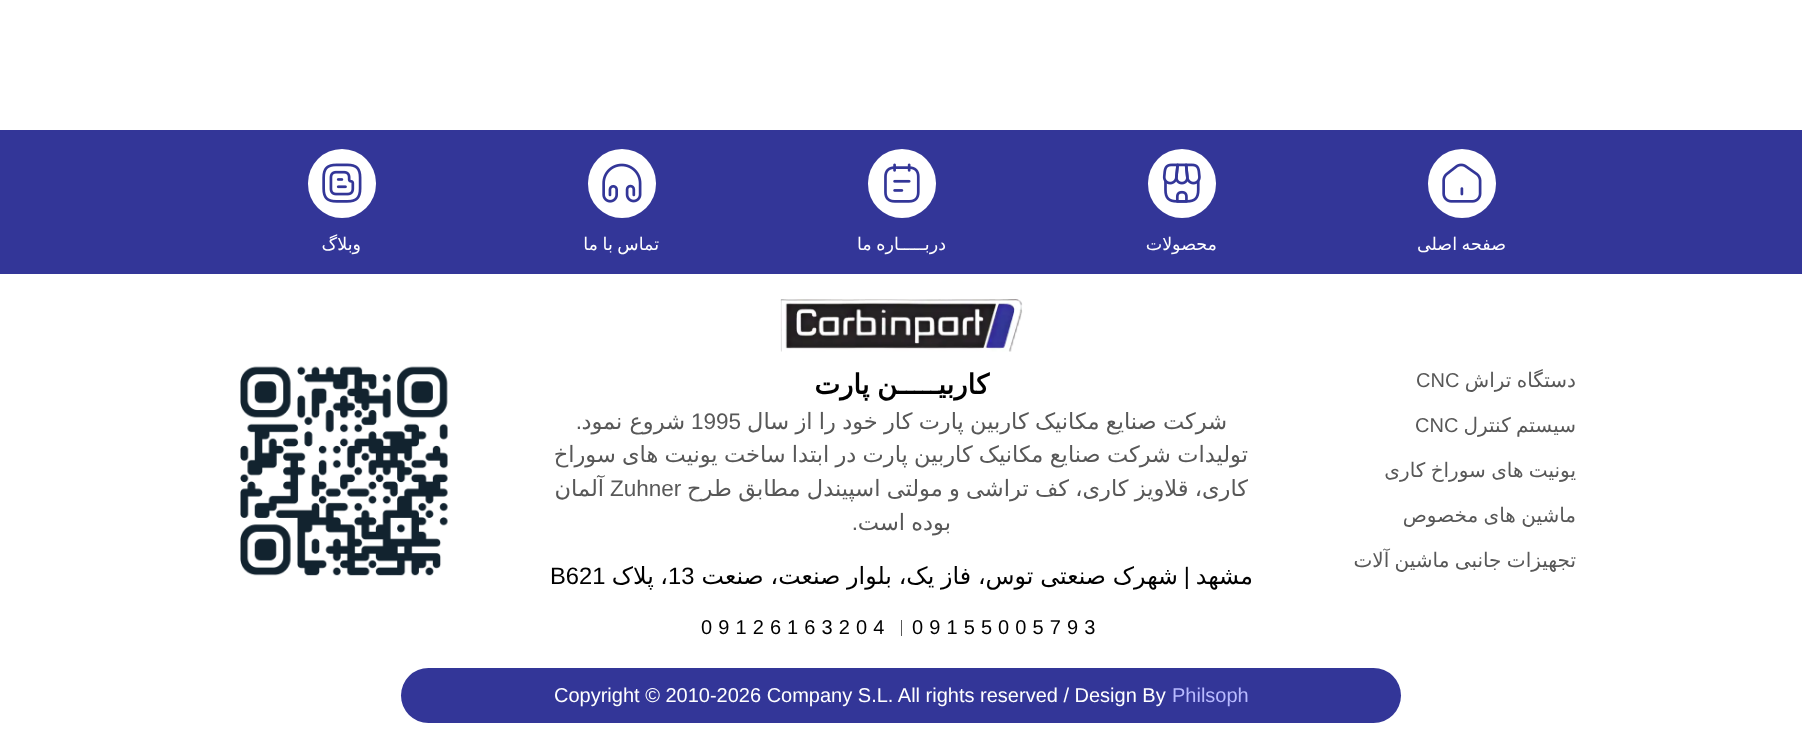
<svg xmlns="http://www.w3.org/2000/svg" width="1802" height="735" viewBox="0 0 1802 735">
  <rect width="100%" height="100%" fill="#ffffff"/>
  <rect x="0" y="130" width="1802" height="144" fill="#333698"/>
  <rect x="1428" y="149" width="68" height="69" rx="34" fill="#ffffff"/>
  <image x="1442" y="163" width="40" height="40" href="img1.png"/>
  <text x="1506" y="250" word-spacing="-1" font-family="DejaVu Sans" font-size="17.5" direction="rtl" fill="#ffffff">صفحه اصلی</text>
  <rect x="1148" y="149" width="68" height="69" rx="34" fill="#ffffff"/>
  <image x="1162" y="163" width="39" height="40" href="img2.png"/>
  <text x="1217" y="250" font-family="DejaVu Sans" font-size="17.5" direction="rtl" fill="#ffffff">محصولات</text>
  <rect x="868" y="149" width="68" height="69" rx="34" fill="#ffffff"/>
  <image x="884" y="163" width="36" height="40" href="img3.png"/>
  <text x="946" y="250" word-spacing="-1" font-family="DejaVu Sans" font-size="17.5" direction="rtl" fill="#ffffff">دربـــــاره ما</text>
  <rect x="588" y="149" width="68" height="69" rx="34" fill="#ffffff"/>
  <image x="602" y="163" width="40" height="40" href="img4.png"/>
  <text x="659" y="250" word-spacing="-1" font-family="DejaVu Sans" font-size="17.5" direction="rtl" fill="#ffffff">تماس با ما</text>
  <rect x="308" y="149" width="68" height="69" rx="34" fill="#ffffff"/>
  <image x="322" y="163" width="40" height="40" href="img5.png"/>
  <text x="361" y="250" font-family="DejaVu Sans" font-size="17.5" direction="rtl" fill="#ffffff">وبلاگ</text>
  <text x="1576" y="387" word-spacing="-1" font-family="DejaVu Sans" font-size="20" direction="rtl" fill="#585858">دستگاه تراش</text>
  <text x="1416" y="387" font-family="Liberation Sans" font-size="20" fill="#585858">CNC</text>
  <text x="1576" y="432" word-spacing="-1" font-family="DejaVu Sans" font-size="20" direction="rtl" fill="#585858">سیستم کنترل</text>
  <text x="1415" y="432" font-family="Liberation Sans" font-size="20" fill="#585858">CNC</text>
  <text x="1576" y="477" word-spacing="-1" font-family="DejaVu Sans" font-size="20" direction="rtl" fill="#585858">یونیت های سوراخ کاری</text>
  <text x="1576" y="522" word-spacing="-1" font-family="DejaVu Sans" font-size="20" direction="rtl" fill="#585858">ماشین های مخصوص</text>
  <text x="1576" y="567" word-spacing="-1" font-family="DejaVu Sans" font-size="20" direction="rtl" fill="#585858">تجهیزات جانبی ماشین آلات</text>
  <image x="780" y="299" width="243" height="53" href="img6.png"/>
  <text x="989" y="394" word-spacing="-1" font-family="DejaVu Sans" font-size="27.5" font-weight="bold" direction="rtl" fill="#000000">کاربیـــــن پارت</text>
  <text x="1227" y="429" word-spacing="-0.9" font-family="DejaVu Sans" font-size="22.5" direction="rtl" fill="#585858">شرکت صنایع مکانیک کاربین پارت کار خود را از سال</text>
  <text x="691" y="429" font-family="Liberation Sans" font-size="22.5" fill="#585858">1995</text>
  <text x="685" y="429" font-family="DejaVu Sans" font-size="22.5" direction="rtl" fill="#585858">شروع نمود</text>
  <text x="582" y="429" font-family="Liberation Sans" font-size="22.5" direction="rtl" fill="#585858">.</text>
  <text x="1248" y="462" word-spacing="-0.9" font-family="DejaVu Sans" font-size="22.5" direction="rtl" fill="#585858">تولیدات شرکت صنایع مکانیک کاربین پارت در ابتدا ساخت یونیت های سوراخ</text>
  <text x="1248" y="496" word-spacing="-0.9" font-family="DejaVu Sans" font-size="22.5" direction="rtl" fill="#585858">کاری، قلاویز کاری، کف تراشی و مولتی اسپیندل مطابق طرح</text>
  <text x="610" y="496" font-family="Liberation Sans" font-size="22.5" fill="#585858">Zuhner</text>
  <text x="604" y="496" font-family="DejaVu Sans" font-size="22.5" direction="rtl" fill="#585858">آلمان</text>
  <text x="951" y="530" word-spacing="-0.9" font-family="DejaVu Sans" font-size="22.5" direction="rtl" fill="#585858">بوده است</text>
  <text x="858" y="530" font-family="Liberation Sans" font-size="22.5" direction="rtl" fill="#585858">.</text>
  <text x="1253" y="584" font-family="DejaVu Sans" font-size="23.75" direction="rtl" fill="#000000">مشهد</text>
  <text x="1190" y="584" font-family="Liberation Sans" font-size="23.75" direction="rtl" fill="#000000">|</text>
  <text x="1178" y="584" word-spacing="-0.75" font-family="DejaVu Sans" font-size="23.75" direction="rtl" fill="#000000">شهرک صنعتی توس، فاز یک، بلوار صنعت، صنعت</text>
  <text x="668" y="584" font-family="Liberation Sans" font-size="23.75" fill="#000000">13</text>
  <text x="668" y="584" word-spacing="-1" font-family="DejaVu Sans" font-size="23.75" direction="rtl" fill="#000000">، پلاک</text>
  <text x="550" y="584" font-family="Liberation Sans" font-size="23.75" fill="#000000">B621</text>
  <text x="912" y="634" font-family="Liberation Sans" font-size="20" letter-spacing="6.1" fill="#000000">09155005793</text>
  <rect x="901" y="620" width="1" height="16" fill="#585858"/>
  <text x="701" y="634" font-family="Liberation Sans" font-size="20" letter-spacing="6.1" fill="#000000">09126163204</text>
  <image x="240" y="366" width="208" height="210" href="img7.png"/>
  <rect x="401" y="668" width="1000" height="55" rx="27.5" fill="#333698"/>
  <text x="1172" y="702" font-family="Liberation Sans" font-size="20" fill="#b8baff">Philsoph</text>
  <text x="554" y="702" font-family="Liberation Sans" font-size="20" fill="#ffffff">Copyright © 2010-2026 Company S.L. All rights reserved / Design By</text>
</svg>
